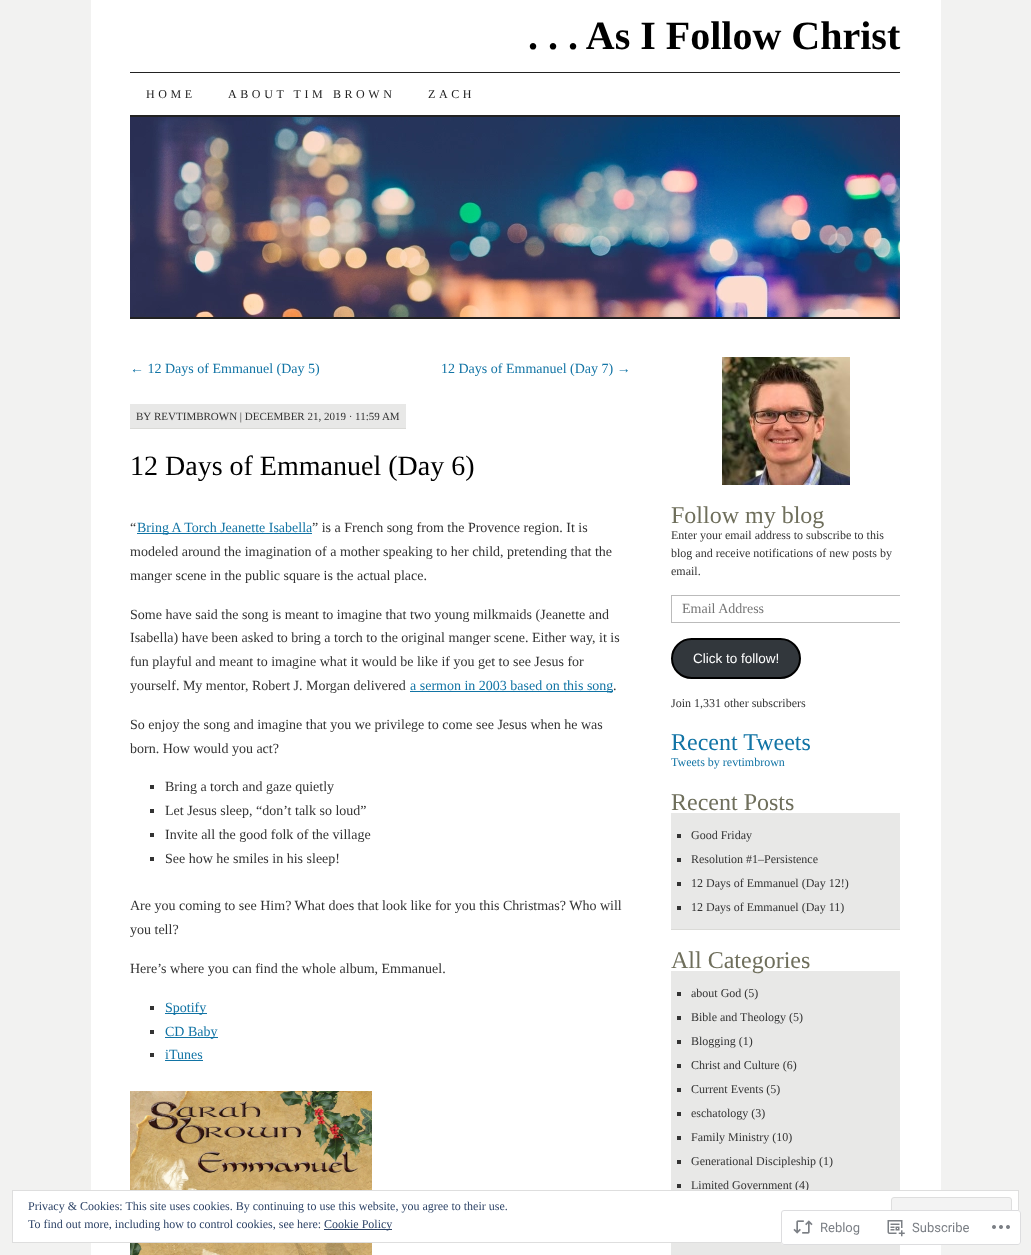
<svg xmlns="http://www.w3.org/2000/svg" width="1031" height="1255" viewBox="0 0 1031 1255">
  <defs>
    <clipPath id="clip1"><rect x="671" y="357" width="229" height="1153"/></clipPath>
  </defs>
  <rect width="100%" height="100%" fill="#f2f2f1"/>
  <rect x="91" y="0" width="850" height="1255" fill="#ffffff"/>
  <text x="528" y="49" font-family="Liberation Serif" font-size="40" font-weight="bold" fill="#000000">. . . As I Follow Christ</text>
  <rect x="130" y="72" width="770" height="1" fill="#222222"/>
  <rect x="130" y="115" width="770" height="2" fill="#222222"/>
  <text x="146" y="98" font-family="Liberation Serif" font-size="12" letter-spacing="3.6" fill="#222222">HOME</text>
  <text x="228" y="98" font-family="Liberation Serif" font-size="12" letter-spacing="3.6" fill="#222222">ABOUT TIM BROWN</text>
  <text x="428" y="98" font-family="Liberation Serif" font-size="12" letter-spacing="3.6" fill="#222222">ZACH</text>
  <image x="130" y="117" width="770" height="200" href="img1.png"/>
  <rect x="130" y="317" width="770" height="2" fill="#222222"/>
  <text x="130" y="373" font-family="Liberation Serif" font-size="14" fill="#1274a5">← 12 Days of Emmanuel (Day 5)</text>
  <text x="441" y="373" font-family="Liberation Serif" font-size="14" fill="#1274a5">12 Days of Emmanuel (Day 7) →</text>
  <rect x="130" y="404" width="276" height="24" fill="#e8e8e7"/>
  <rect x="130" y="428" width="276" height="1" fill="#dadad7"/>
  <text x="136" y="420" font-family="Liberation Serif" font-size="11" fill="#333333">BY</text>
  <text x="154" y="420" font-family="Liberation Serif" font-size="11" fill="#333333">REVTIMBROWN | DECEMBER 21, 2019 · 11:59 AM</text>
  <text x="130" y="475" font-family="Liberation Serif" font-size="28" fill="#000000">12 Days of Emmanuel (Day 6)</text>
  <text x="130" y="532" font-family="Liberation Serif" font-size="14" fill="#333333">“</text>
  <rect x="137" y="533" width="175" height="1" fill="#1274a5"/>
  <text x="137" y="532" font-family="Liberation Serif" font-size="14" fill="#1274a5">Bring A Torch Jeanette Isabella</text>
  <text x="312" y="532" font-family="Liberation Serif" font-size="14" fill="#333333">” is a French song from the Provence region. It is</text>
  <text x="130" y="556" font-family="Liberation Serif" font-size="14" fill="#333333">modeled around the imagination of a mother speaking to her child, pretending that the</text>
  <text x="130" y="580" font-family="Liberation Serif" font-size="14" fill="#333333">manger scene in the public square is the actual place.</text>
  <text x="130" y="619" font-family="Liberation Serif" font-size="14" fill="#333333">Some have said the song is meant to imagine that two young milkmaids (Jeanette and</text>
  <text x="130" y="642" font-family="Liberation Serif" font-size="14" fill="#333333">Isabella) have been asked to bring a torch to the original manger scene. Either way, it is</text>
  <text x="130" y="666" font-family="Liberation Serif" font-size="14" fill="#333333">fun playful and meant to imagine what it would be like if you get to see Jesus for</text>
  <text x="130" y="690" font-family="Liberation Serif" font-size="14" fill="#333333">yourself. My mentor, Robert J. Morgan delivered</text>
  <rect x="410" y="691" width="203" height="1" fill="#1274a5"/>
  <text x="410" y="690" font-family="Liberation Serif" font-size="14" fill="#1274a5">a sermon in 2003 based on this song</text>
  <text x="613" y="690" font-family="Liberation Serif" font-size="14" fill="#333333">.</text>
  <text x="130" y="729" font-family="Liberation Serif" font-size="14" fill="#333333">So enjoy the song and imagine that you we privilege to come see Jesus when he was</text>
  <text x="130" y="753" font-family="Liberation Serif" font-size="14" fill="#333333">born. How would you act?</text>
  <rect x="150" y="785" width="4" height="4" fill="#333333"/>
  <text x="165" y="791" font-family="Liberation Serif" font-size="14" fill="#333333">Bring a torch and gaze quietly</text>
  <rect x="150" y="809" width="4" height="4" fill="#333333"/>
  <text x="165" y="815" font-family="Liberation Serif" font-size="14" fill="#333333">Let Jesus sleep, “don’t talk so loud”</text>
  <rect x="150" y="833" width="4" height="4" fill="#333333"/>
  <text x="165" y="839" font-family="Liberation Serif" font-size="14" fill="#333333">Invite all the good folk of the village</text>
  <rect x="150" y="857" width="4" height="4" fill="#333333"/>
  <text x="165" y="863" font-family="Liberation Serif" font-size="14" fill="#333333">See how he smiles in his sleep!</text>
  <text x="130" y="910" font-family="Liberation Serif" font-size="14" fill="#333333">Are you coming to see Him? What does that look like for you this Christmas? Who will</text>
  <text x="130" y="934" font-family="Liberation Serif" font-size="14" fill="#333333">you tell?</text>
  <text x="130" y="973" font-family="Liberation Serif" font-size="14" fill="#333333">Here’s where you can find the whole album, Emmanuel.</text>
  <rect x="150" y="1006" width="4" height="4" fill="#333333"/>
  <rect x="165" y="1013" width="42" height="1" fill="#1274a5"/>
  <text x="165" y="1012" font-family="Liberation Serif" font-size="14" fill="#1274a5">Spotify</text>
  <rect x="150" y="1030" width="4" height="4" fill="#333333"/>
  <rect x="165" y="1037" width="53" height="1" fill="#1274a5"/>
  <text x="165" y="1036" font-family="Liberation Serif" font-size="14" fill="#1274a5">CD Baby</text>
  <rect x="150" y="1053" width="4" height="4" fill="#333333"/>
  <text x="165" y="1059" font-family="Liberation Serif" font-size="14" fill="#1274a5">iTunes</text>
  <rect x="165" y="1060" width="38" height="1" fill="#1274a5"/>
  <image x="130" y="1091" width="242" height="164" href="img2.png"/>
  <image x="722" y="357" width="128" height="128" href="img3.png"/>
  <text x="671" y="523" font-family="Liberation Serif" font-size="24" fill="#6f6f5c">Follow my blog</text>
  <text x="671" y="539" font-family="Liberation Serif" font-size="12" fill="#333333">Enter your email address to subscribe to this</text>
  <text x="671" y="557" font-family="Liberation Serif" font-size="12" fill="#333333">blog and receive notifications of new posts by</text>
  <text x="671" y="575" font-family="Liberation Serif" font-size="12" fill="#333333">email.</text>
  <g clip-path="url(#clip1)">
    <rect x="671.5" y="595.5" width="239" height="27" fill="none" stroke="#bbbbbb"/>
  </g>
  <text x="682" y="613" font-family="Liberation Serif" font-size="14" fill="#757575">Email Address</text>
  <rect x="672" y="639" width="128" height="39" rx="19.5" fill="#32373c" stroke="#000000" stroke-width="2"/>
  <text x="693" y="663" font-family="Liberation Sans" font-size="13.5" fill="#ffffff">Click to follow!</text>
  <text x="671" y="707" font-family="Liberation Serif" font-size="12" fill="#333333">Join 1,331 other subscribers</text>
  <text x="671" y="750" font-family="Liberation Serif" font-size="24" fill="#1274a5">Recent Tweets</text>
  <text x="671" y="766" font-family="Liberation Serif" font-size="12" fill="#1274a5">Tweets by revtimbrown</text>
  <text x="671" y="810" font-family="Liberation Serif" font-size="24" fill="#6f6f5c">Recent Posts</text>
  <rect x="671" y="813" width="229" height="116" fill="#e8e8e7"/>
  <rect x="671" y="929" width="229" height="1" fill="#dadad7"/>
  <rect x="677" y="834" width="4" height="4" fill="#333333"/>
  <text x="691" y="839" font-family="Liberation Serif" font-size="12" fill="#333333">Good Friday</text>
  <rect x="677" y="858" width="4" height="4" fill="#333333"/>
  <text x="691" y="863" font-family="Liberation Serif" font-size="12" fill="#333333">Resolution #1–Persistence</text>
  <rect x="677" y="882" width="4" height="4" fill="#333333"/>
  <text x="691" y="887" font-family="Liberation Serif" font-size="12" fill="#333333">12 Days of Emmanuel (Day 12!)</text>
  <rect x="677" y="906" width="4" height="4" fill="#333333"/>
  <text x="691" y="911" font-family="Liberation Serif" font-size="12" fill="#333333">12 Days of Emmanuel (Day 11)</text>
  <rect x="671" y="971" width="229" height="284" fill="#e8e8e7"/>
  <text x="671" y="968" font-family="Liberation Serif" font-size="24" fill="#6f6f5c">All Categories</text>
  <rect x="677" y="992" width="4" height="4" fill="#333333"/>
  <text x="691" y="997" font-family="Liberation Serif" font-size="12" fill="#333333">about God (5)</text>
  <rect x="677" y="1016" width="4" height="4" fill="#333333"/>
  <text x="691" y="1021" font-family="Liberation Serif" font-size="12" fill="#333333">Bible and Theology (5)</text>
  <rect x="677" y="1040" width="4" height="4" fill="#333333"/>
  <text x="691" y="1045" font-family="Liberation Serif" font-size="12" fill="#333333">Blogging (1)</text>
  <rect x="677" y="1064" width="4" height="4" fill="#333333"/>
  <text x="691" y="1069" font-family="Liberation Serif" font-size="12" fill="#333333">Christ and Culture (6)</text>
  <rect x="677" y="1088" width="4" height="4" fill="#333333"/>
  <text x="691" y="1093" font-family="Liberation Serif" font-size="12" fill="#333333">Current Events (5)</text>
  <rect x="677" y="1112" width="4" height="4" fill="#333333"/>
  <text x="691" y="1117" font-family="Liberation Serif" font-size="12" fill="#333333">eschatology (3)</text>
  <rect x="677" y="1136" width="4" height="4" fill="#333333"/>
  <text x="691" y="1141" font-family="Liberation Serif" font-size="12" fill="#333333">Family Ministry (10)</text>
  <rect x="677" y="1160" width="4" height="4" fill="#333333"/>
  <text x="691" y="1165" font-family="Liberation Serif" font-size="12" fill="#333333">Generational Discipleship (1)</text>
  <rect x="677" y="1184" width="4" height="4" fill="#333333"/>
  <text x="691" y="1189" font-family="Liberation Serif" font-size="12" fill="#333333">Limited Government (4)</text>
  <rect x="12.5" y="1190.5" width="1006" height="52" fill="#ffffff" stroke="#dedede"/>
  <text x="28" y="1210" font-family="Liberation Serif" font-size="12" fill="#2e4467">Privacy &amp; Cookies: This site uses cookies. By continuing to use this website, you agree to their use.</text>
  <rect x="891.5" y="1197.5" width="120" height="38" rx="2.5" fill="#f3f3f3" stroke="#dedede"/>
  <text x="28" y="1228" font-family="Liberation Serif" font-size="12" fill="#2e4467">To find out more, including how to control cookies, see here:</text>
  <rect x="324" y="1229" width="68" height="1" fill="#2e4467"/>
  <text x="324" y="1228" font-family="Liberation Serif" font-size="12" fill="#2e4467">Cookie Policy</text>
  <rect x="781" y="1210" width="240" height="35" rx="3" fill="#ffffff" fill-opacity="0.98"/>
  <rect x="781.5" y="1210.5" width="239" height="34" rx="2.5" fill="none" stroke="#dcdcde" stroke-opacity="0.98"/>
  <image x="793" y="1220" width="20" height="14" href="img4.png"/>
  <text x="820" y="1232" font-family="Roboto" font-size="13" fill="#7b7f85">Reblog</text>
  <image x="887" y="1220" width="18" height="17" href="img5.png"/>
  <text x="912" y="1232" font-family="Roboto" font-size="13" fill="#7b7f85">Subscribe</text>
  <image x="992" y="1225" width="18" height="4" href="img6.png"/>
</svg>
